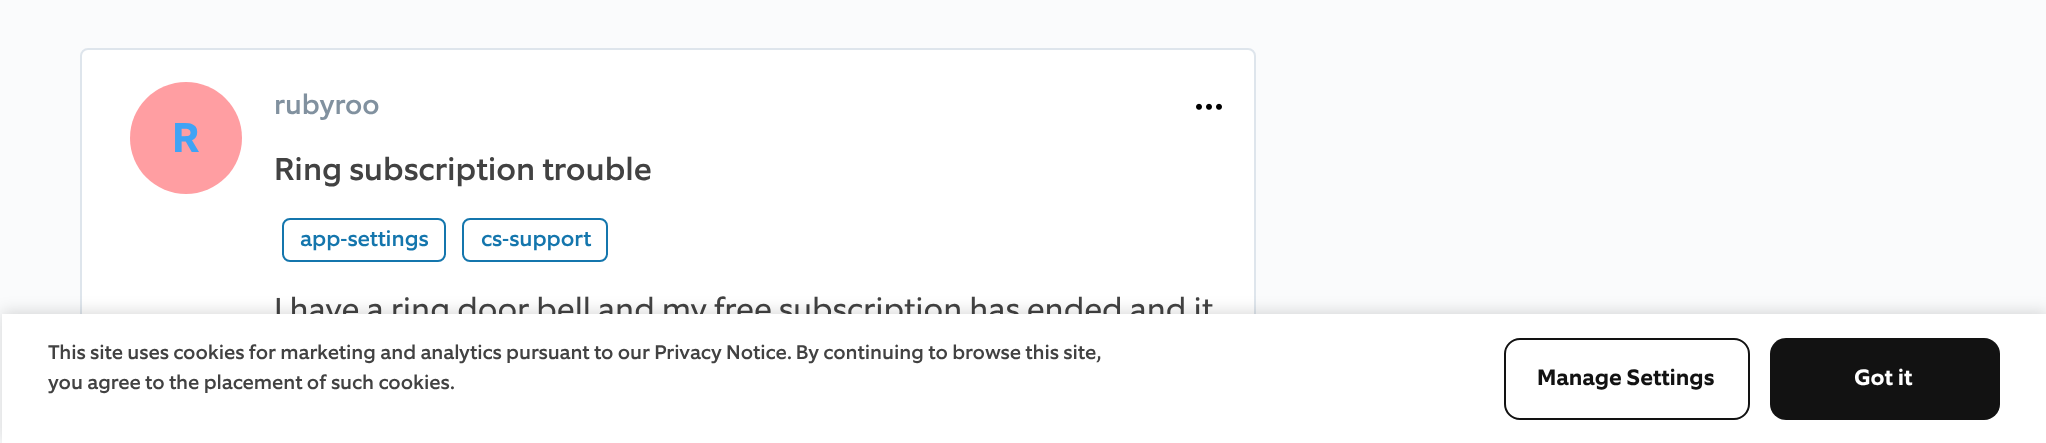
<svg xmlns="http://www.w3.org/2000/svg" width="2046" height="443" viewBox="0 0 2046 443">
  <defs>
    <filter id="blur1" x="-50%" y="-200%" width="200%" height="500%"><feGaussianBlur stdDeviation="8"/></filter>
  </defs>
  <rect width="100%" height="100%" fill="#fafbfc"/>
  <rect x="81" y="49" width="1174" height="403" rx="7" fill="#ffffff" stroke="#dee5ec" stroke-width="2"/>
  <circle cx="186" cy="138" r="56" fill="#ff9ea2"/>
  <text x="172" y="152" font-family="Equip" font-size="42" font-weight="bold" fill="#40a3f5">R</text>
  <text x="274" y="114" font-family="Equip" font-size="28" font-weight="500" fill="#81919f">rubyroo</text>
  <image x="1196" y="103" width="26" height="7" href="img1.png"/>
  <text x="274" y="180" font-family="Equip" font-size="32" font-weight="500" fill="#424242">Ring subscription trouble</text>
  <rect x="283" y="219" width="162" height="42" rx="7" fill="none" stroke="#1476ad" stroke-width="2"/>
  <text x="300" y="246" font-family="Equip" font-size="22" font-weight="500" fill="#1476ad">app-settings</text>
  <rect x="463" y="219" width="144" height="42" rx="7" fill="none" stroke="#1476ad" stroke-width="2"/>
  <text x="481" y="246" font-family="Equip" font-size="22" font-weight="500" fill="#1476ad">cs-support</text>
  <text x="274" y="320" font-family="Equip" font-size="32" fill="#424242">I have a ring door bell and my free subscription has ended and it</text>
  <rect x="2" y="312" width="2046" height="130" fill="#000000" fill-opacity="0.15" filter="url(#blur1)"/>
  <rect x="2" y="314" width="2044" height="129" fill="#ffffff"/>
  <text x="48" y="359" font-family="Equip" font-size="20" font-weight="500" fill="#424242">This site uses cookies for marketing and analytics pursuant to our Privacy Notice. By continuing to browse this site,</text>
  <text x="48" y="389" font-family="Equip" font-size="20" font-weight="500" fill="#424242">you agree to the placement of such cookies.</text>
  <rect x="1505" y="339" width="244" height="80" rx="15" fill="none" stroke="#121212" stroke-width="2"/>
  <text x="1537" y="385" font-family="Equip" font-size="22.5" font-weight="bold" fill="#121212">Manage Settings</text>
  <rect x="1770" y="338" width="230" height="82" rx="16" fill="#121212"/>
  <text x="1854" y="385" font-family="Equip" font-size="22.5" font-weight="bold" fill="#ffffff">Got it</text>
</svg>
